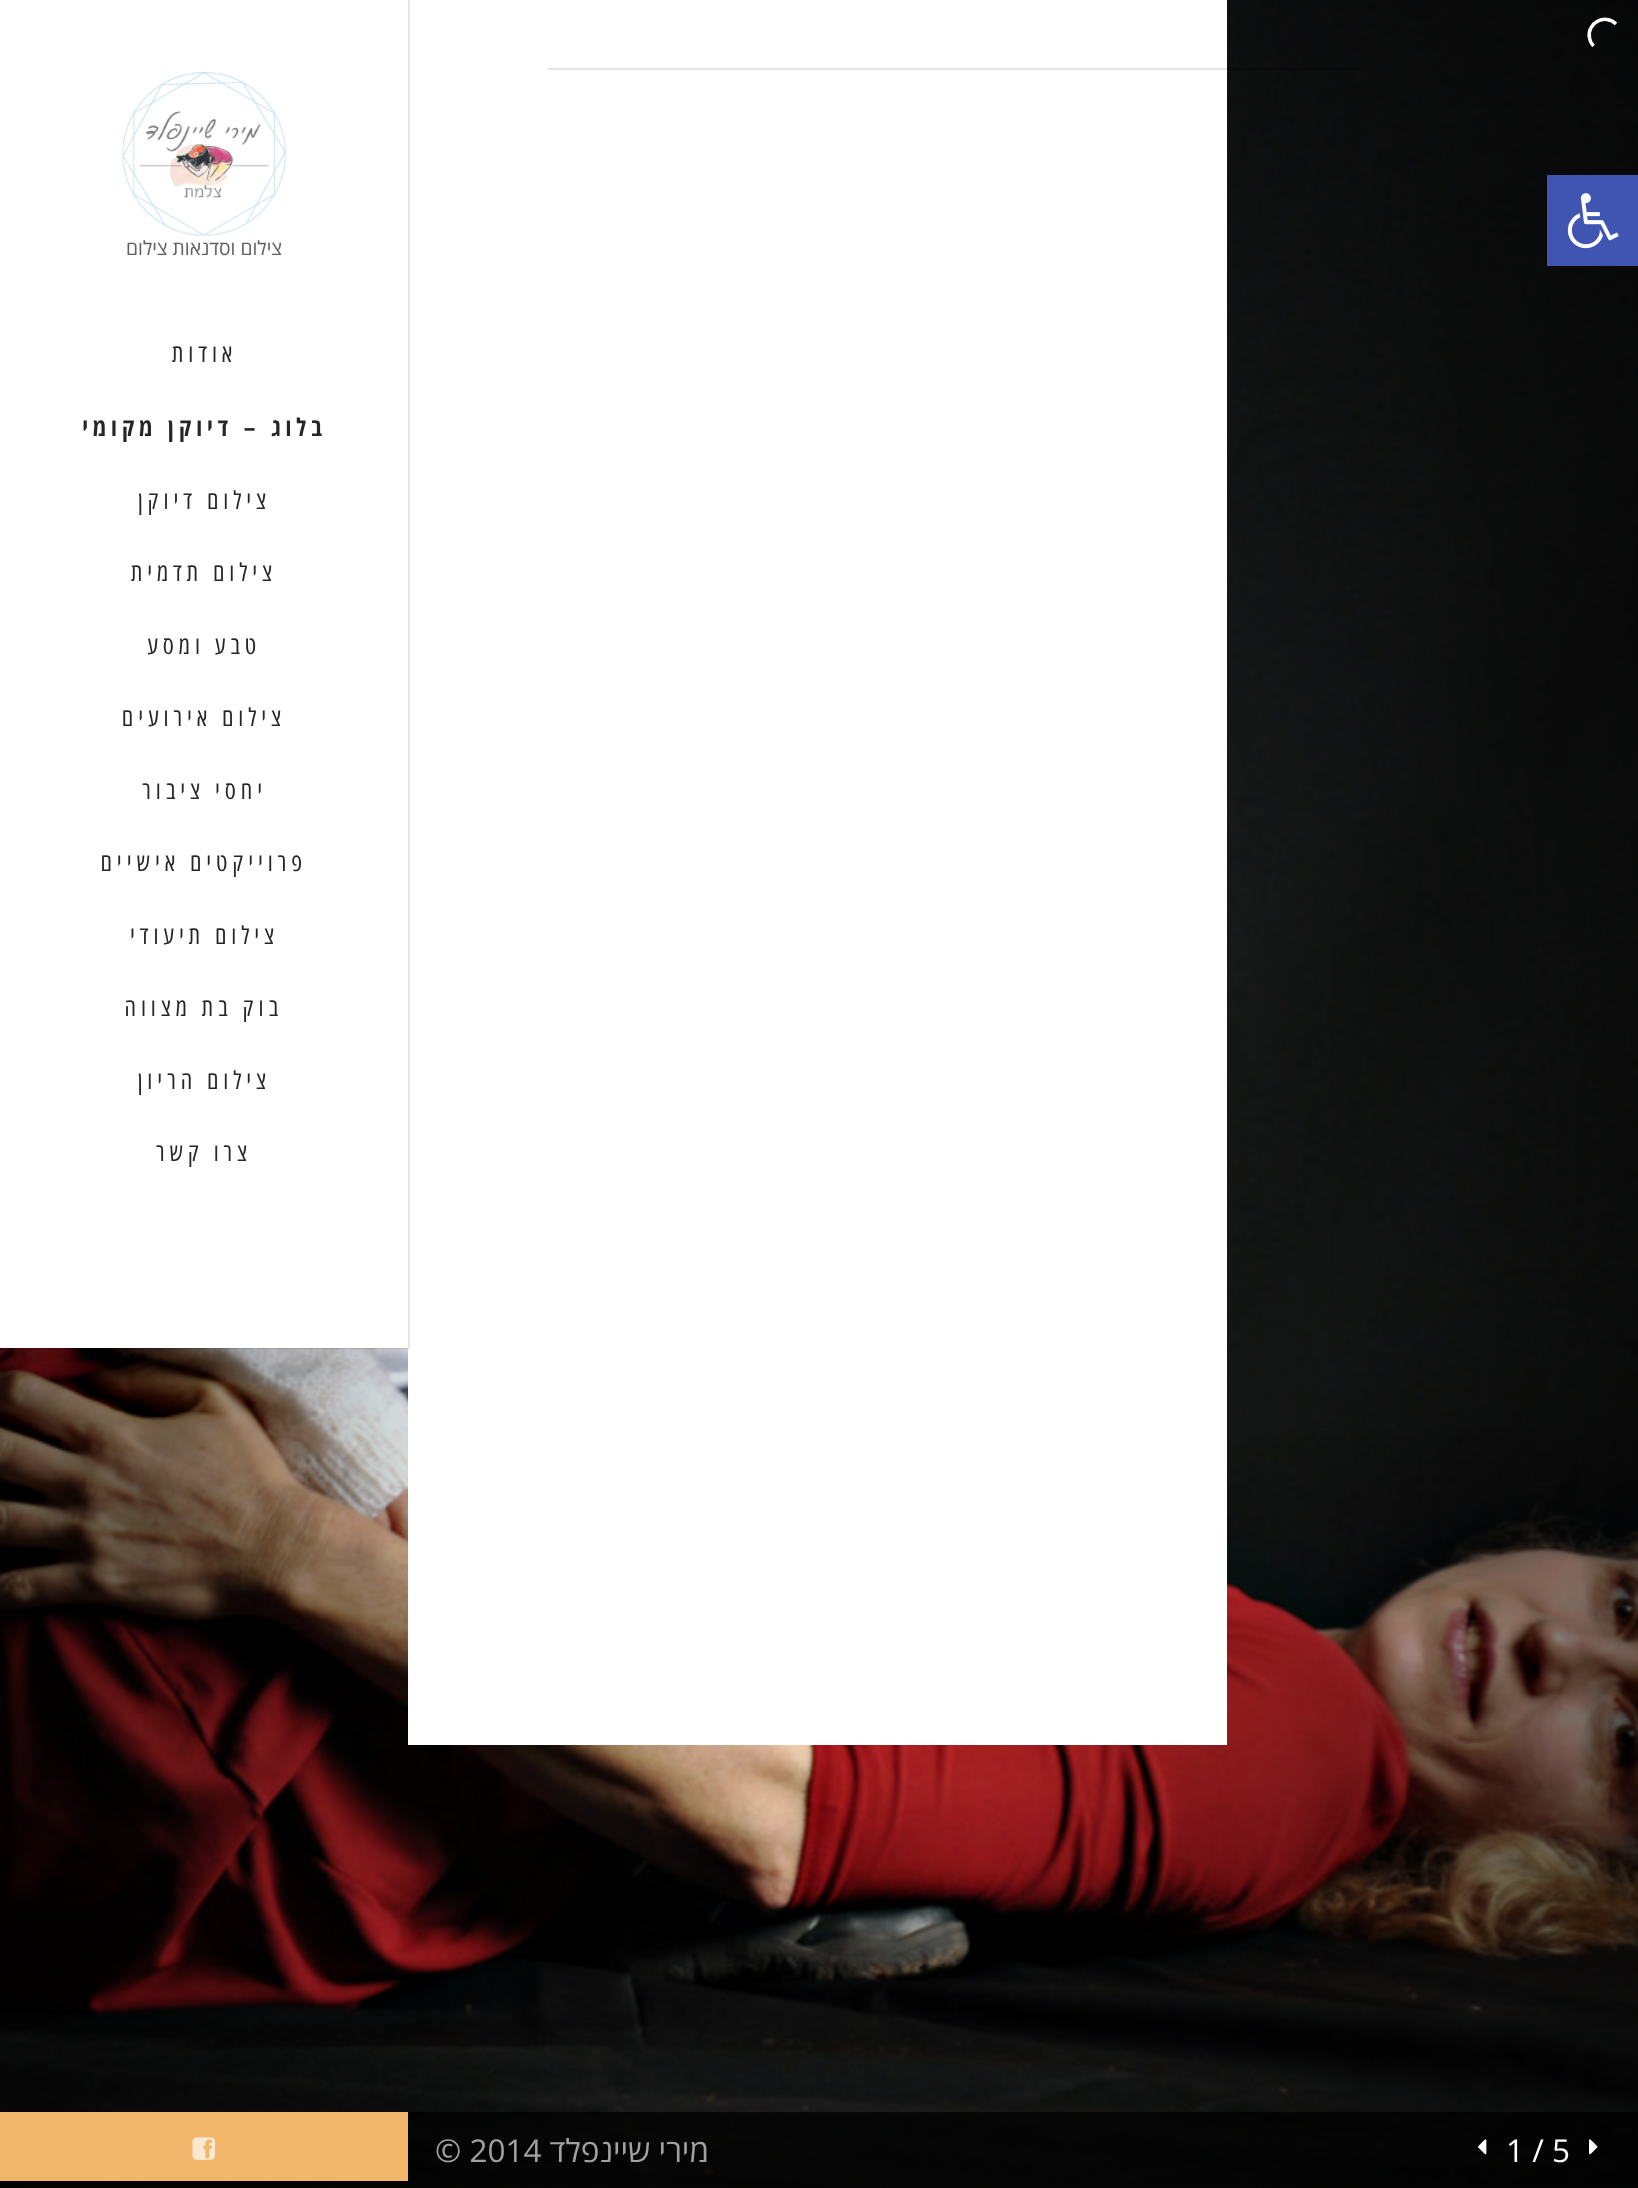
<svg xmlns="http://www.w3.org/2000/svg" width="1638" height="2188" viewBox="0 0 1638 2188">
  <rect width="100%" height="100%" fill="#ffffff"/>
  <image x="0" y="0" width="1638" height="2188" href="img1.png"/>
  <image x="0" y="0" width="1638" height="2188" href="img2.png"/>
  <path d="M1593.5 46C1591.5 44 1590 41 1589.5 38C1586.5 23 1605 13 1616 24" fill="none" stroke="#ffffff" stroke-width="3.5"/>
  <rect x="408" y="0" width="819" height="1745" fill="#ffffff"/>
  <path d="M548 68V70H1367V2V68Z" fill="#000000" fill-opacity="0.1"/>
  <rect x="1547" y="175" width="91" height="91" fill="#4054b2"/>
  <image x="1567" y="193" width="52" height="56" href="img3.png"/>
  <rect x="-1" y="-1" width="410" height="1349" fill="none" stroke="#000000" stroke-opacity="0.09" stroke-width="2"/>
  <rect x="0" y="0" width="408" height="1348" fill="#ffffff"/>
  <image x="122" y="72" width="165" height="164" href="img4.png"/>
  <text x="282" y="255" font-family="Open Sans" font-size="19.25" direction="rtl" fill="#606060">צילום וסדנאות צילום</text>
  <text x="237" y="362" font-family="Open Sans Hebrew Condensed" font-size="24.5" letter-spacing="4.9" direction="rtl" fill="#262626">אודות</text>
  <text x="327" y="436" font-family="Open Sans Hebrew Condensed" font-size="24.5" font-weight="bold" letter-spacing="4.9" direction="rtl" fill="#262626">בלוג – דיוקן מקומי</text>
  <text x="271" y="509" font-family="Open Sans Hebrew Condensed" font-size="24.5" letter-spacing="4.9" direction="rtl" fill="#262626">צילום דיוקן</text>
  <text x="277" y="581" font-family="Open Sans Hebrew Condensed" font-size="24.5" letter-spacing="4.9" direction="rtl" fill="#262626">צילום תדמית</text>
  <text x="261" y="654" font-family="Open Sans Hebrew Condensed" font-size="24.5" letter-spacing="4.9" direction="rtl" fill="#262626">טבע ומסע</text>
  <text x="286" y="726" font-family="Open Sans Hebrew Condensed" font-size="24.5" letter-spacing="4.9" direction="rtl" fill="#262626">צילום אירועים</text>
  <text x="267" y="799" font-family="Open Sans Hebrew Condensed" font-size="24.5" letter-spacing="4.9" direction="rtl" fill="#262626">יחסי ציבור</text>
  <text x="307" y="871" font-family="Open Sans Hebrew Condensed" font-size="24.5" letter-spacing="4.9" direction="rtl" fill="#262626">פרוייקטים אישיים</text>
  <text x="279" y="944" font-family="Open Sans Hebrew Condensed" font-size="24.5" letter-spacing="4.9" direction="rtl" fill="#262626">צילום תיעודי</text>
  <text x="283" y="1016" font-family="Open Sans Hebrew Condensed" font-size="24.5" letter-spacing="4.9" direction="rtl" fill="#262626">בוק בת מצווה</text>
  <text x="271" y="1089" font-family="Open Sans Hebrew Condensed" font-size="24.5" letter-spacing="4.9" direction="rtl" fill="#262626">צילום הריון</text>
  <text x="252" y="1161" font-family="Open Sans Hebrew Condensed" font-size="24.5" letter-spacing="4.9" direction="rtl" fill="#262626">צרו קשר</text>
  <rect x="0" y="2112" width="1638" height="76" fill="#000000" fill-opacity="0.7"/>
  <image x="1589" y="2139" width="9" height="16" href="img5.png"/>
  <text x="1506" y="2162" font-family="Open Sans" font-size="31.5" fill="#ffffff">1 / 5</text>
  <image x="1478" y="2139" width="9" height="16" href="img6.png"/>
  <text x="709" y="2162" font-family="Open Sans" font-size="31.5" direction="rtl" fill="#a1a1a1">מירי שיינפלד</text>
  <text x="435" y="2162" font-family="Open Sans" font-size="31.5" fill="#a1a1a1">© 2014</text>
  <rect x="0" y="2112" width="408" height="69" fill="#f1b669"/>
  <image x="192" y="2137" width="23" height="23" href="img7.png"/>
</svg>
